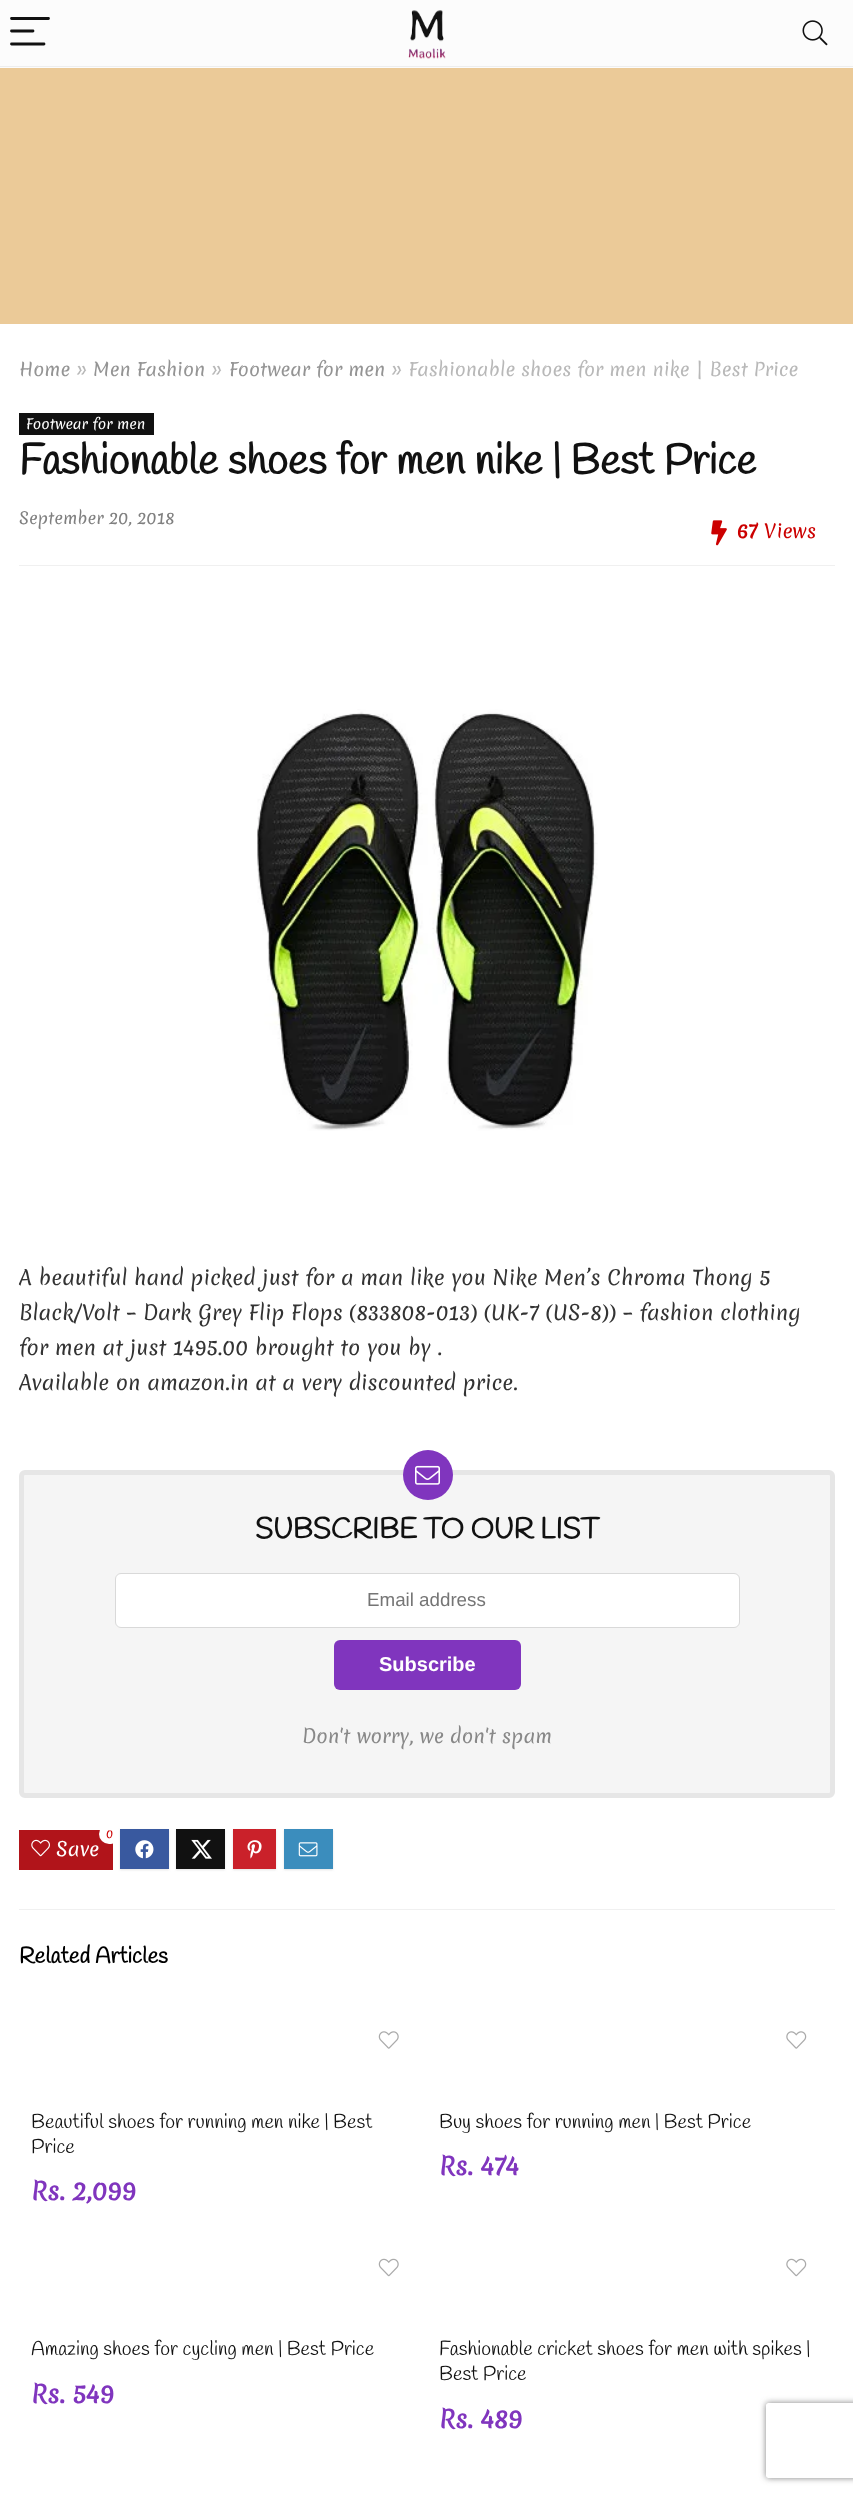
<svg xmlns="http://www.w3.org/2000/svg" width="853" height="2495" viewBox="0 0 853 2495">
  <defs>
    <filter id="blur1" x="-50%" y="-200%" width="200%" height="500%"><feGaussianBlur stdDeviation="1"/></filter>
    <clipPath id="clip1"><path d="M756 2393H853V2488H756ZM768.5 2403H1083.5C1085 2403 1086 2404 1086 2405.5V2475.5C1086 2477 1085 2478 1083.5 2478H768.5C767 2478 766 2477 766 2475.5V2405.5C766 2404 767 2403 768.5 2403Z" clip-rule="evenodd"/></clipPath>
    <filter id="blur2" x="-50%" y="-200%" width="200%" height="500%"><feGaussianBlur stdDeviation="3"/></filter>
  </defs>
  <rect width="100%" height="100%" fill="#ffffff"/>
  <rect x="0" y="68" width="853" height="256" fill="#ebca98"/>
  <rect x="0" y="0" width="853" height="68" fill="#fcfcfc"/>
  <rect x="0" y="66" width="853" height="1" fill="#eeeeee"/>
  <path d="M11.5 18.5H48.5M11.5 31H33M11.5 44H44" fill="none" stroke="#111111" stroke-width="2.8" stroke-linecap="round"/>
  <image x="408" y="10" width="38" height="49" href="img1.png"/>
  <image x="802" y="20" width="26" height="26" href="img2.png"/>
  <text x="19" y="376" font-family="Merienda" font-size="18" fill="#949494">Home</text>
  <text x="76" y="376" font-family="Merienda" font-size="18" fill="#b8b8b8">»</text>
  <text x="93" y="376" font-family="Merienda" font-size="18" fill="#949494">Men Fashion</text>
  <text x="211" y="376" font-family="Merienda" font-size="18" fill="#b8b8b8">»</text>
  <text x="229" y="376" font-family="Merienda" font-size="18" fill="#949494">Footwear for men</text>
  <text x="391" y="376" font-family="Merienda" font-size="18" fill="#b8b8b8">» Fashionable shoes for men nike | Best Price</text>
  <rect x="19" y="413" width="135" height="22" fill="#111111"/>
  <text x="26" y="429" font-family="Merienda" font-size="13.75" fill="#ffffff">Footwear for men</text>
  <text x="19" y="474" font-family="Handlee" font-size="42.5" font-weight="bold" fill="#111111">Fashionable shoes for men nike | Best Price</text>
  <rect x="19" y="565" width="816" height="1" fill="#f0f0f0"/>
  <text x="19" y="524" font-family="Merienda" font-size="16" fill="#808080">September 20, 2018</text>
  <image x="711" y="520" width="16" height="26" href="img3.png"/>
  <text x="737" y="538" font-family="Merienda" font-size="18.75" font-weight="bold" fill="#cc0000">67</text>
  <text x="764" y="538" font-family="Merienda" font-size="18.75" fill="#cc0000">Views</text>
  <image x="257" y="709" width="341" height="422" href="img4.png"/>
  <text x="19" y="1285" font-family="Merienda" font-size="20" fill="#333333">A beautiful hand picked just for a man like you Nike Men’s Chroma Thong 5</text>
  <text x="19" y="1320" font-family="Merienda" font-size="20" fill="#333333">Black/Volt – Dark Grey Flip Flops (833808-013) (UK-7 (US-8)) – fashion clothing</text>
  <text x="19" y="1355" font-family="Merienda" font-size="20" fill="#333333">for men at just 1495.00 brought to you by .</text>
  <text x="19" y="1390" font-family="Merienda" font-size="20" fill="#333333">Available on amazon.in at a very discounted price.</text>
  <rect x="21.5" y="1472.5" width="811" height="323" rx="3.5" fill="#f5f5f5" stroke="#e6e6e6" stroke-width="5"/>
  <circle cx="428" cy="1475" r="25" fill="#8035be"/>
  <image x="415" y="1465" width="25" height="20" href="img5.png"/>
  <text x="255" y="1538" font-family="Handlee" font-size="28.75" font-weight="bold" fill="#111111">SUBSCRIBE TO OUR LIST</text>
  <rect x="115.5" y="1573.5" width="624" height="54" rx="5.5" fill="#ffffff" stroke="#d9d9d9"/>
  <text x="367" y="1606" font-family="Liberation Sans" font-size="18.75" fill="#757575">Email address</text>
  <rect x="334" y="1640" width="187" height="50" rx="6" fill="#8035be"/>
  <text x="379" y="1671" font-family="Liberation Sans" font-size="20" font-weight="bold" fill="#ffffff">Subscribe</text>
  <text x="302" y="1743" font-family="Merienda" font-size="18.75" fill="#888888">Don't worry, we don't spam</text>
  <rect x="19" y="1830" width="94" height="40" fill="#b1141a"/>
  <rect x="99" y="1824" width="22" height="20" rx="10" fill="#ffffff"/>
  <text x="106" y="1838" font-family="Merienda" font-size="11" fill="#cc0000">0</text>
  <image x="31" y="1839" width="19" height="18" href="img6.png"/>
  <text x="56" y="1856" font-family="Merienda" font-size="18.75" fill="#ffffff">Save</text>
  <rect x="120" y="1830" width="49" height="40" fill="#e4e4e4" filter="url(#blur1)"/>
  <rect x="120" y="1829" width="49" height="40" fill="#39599f"/>
  <image x="135" y="1840" width="19" height="19" href="img7.png"/>
  <rect x="176" y="1830" width="49" height="40" fill="#e4e4e4" filter="url(#blur1)"/>
  <rect x="176" y="1829" width="49" height="40" fill="#111111"/>
  <image x="191" y="1839" width="21" height="20" href="img8.png"/>
  <rect x="233" y="1830" width="43" height="40" fill="#e4e4e4" filter="url(#blur1)"/>
  <rect x="233" y="1829" width="43" height="40" fill="#ca212a"/>
  <image x="247" y="1840" width="15" height="19" href="img9.png"/>
  <rect x="284" y="1830" width="49" height="40" fill="#e4e4e4" filter="url(#blur1)"/>
  <rect x="284" y="1829" width="49" height="40" fill="#3b8dbd"/>
  <image x="298" y="1842" width="20" height="15" href="img10.png"/>
  <rect x="19" y="1909" width="816" height="1" fill="#f0f0f0"/>
  <text x="19" y="1963" font-family="Handlee" font-size="22.5" font-weight="bold" fill="#000000">Related Articles</text>
  <image x="378" y="2031" width="21" height="18" href="img11.png"/>
  <text x="31" y="2128" font-family="Handlee" font-size="20" fill="#111111">Beautiful shoes for running men nike | Best</text>
  <text x="31" y="2153" font-family="Handlee" font-size="20" fill="#111111">Price</text>
  <text x="31" y="2200" font-family="Merienda" font-size="24" font-weight="bold" fill="#8035be">Rs. 2,099</text>
  <image x="786" y="2031" width="21" height="18" href="img12.png"/>
  <text x="439" y="2128" font-family="Handlee" font-size="20" fill="#111111">Buy shoes for running men | Best Price</text>
  <text x="439" y="2175" font-family="Merienda" font-size="24" font-weight="bold" fill="#8035be">Rs. 474</text>
  <image x="378" y="2258" width="21" height="19" href="img13.png"/>
  <text x="31" y="2355" font-family="Handlee" font-size="20" fill="#111111">Amazing shoes for cycling men | Best Price</text>
  <text x="31" y="2403" font-family="Merienda" font-size="24" font-weight="bold" fill="#8035be">Rs. 549</text>
  <image x="786" y="2258" width="21" height="19" href="img14.png"/>
  <text x="439" y="2355" font-family="Handlee" font-size="20" fill="#111111">Fashionable cricket shoes for men with spikes |</text>
  <text x="439" y="2380" font-family="Handlee" font-size="20" fill="#111111">Best Price</text>
  <text x="439" y="2428" font-family="Merienda" font-size="24" font-weight="bold" fill="#8035be">Rs. 489</text>
  <g clip-path="url(#clip1)">
    <rect x="766" y="2403" width="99" height="75" rx="2.5" fill="#808080" filter="url(#blur2)"/>
  </g>
</svg>
